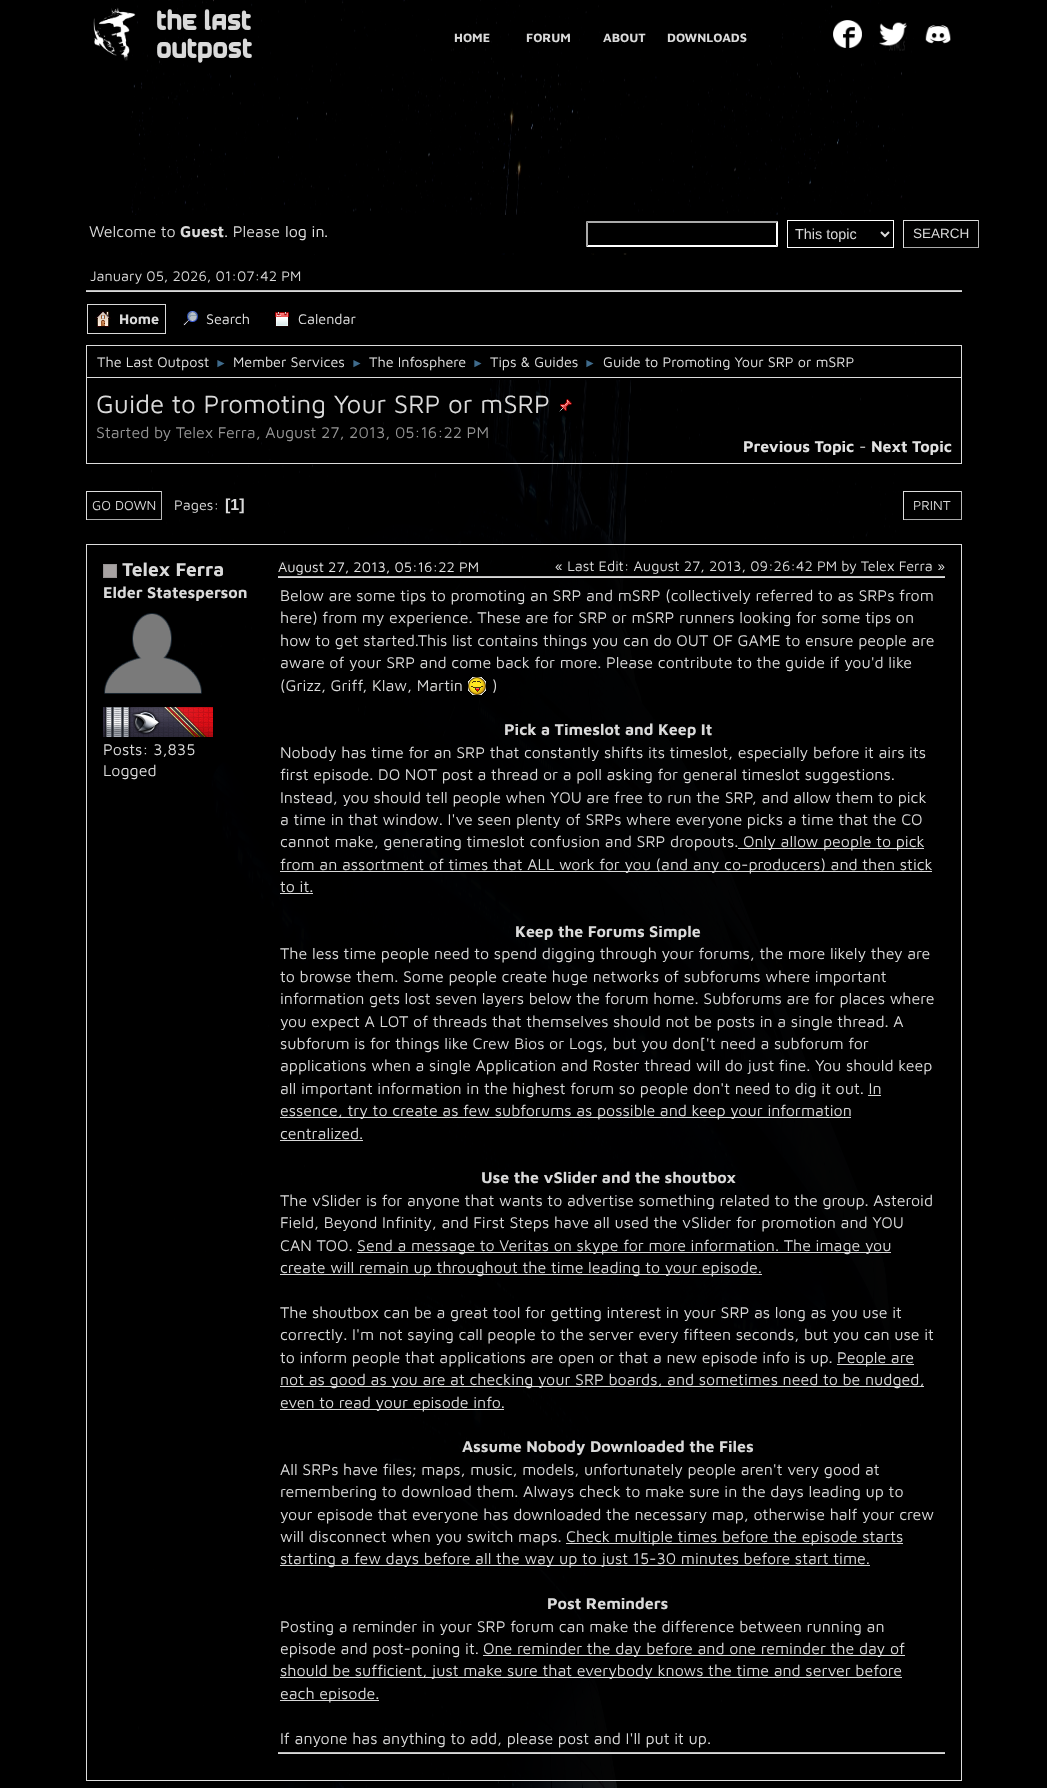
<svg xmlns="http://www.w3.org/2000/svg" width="1047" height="1788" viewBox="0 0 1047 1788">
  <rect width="100%" height="100%" fill="#000000"/>
  <image x="131" y="0" width="785" height="1788" href="img1.png"/>
  <rect x="131" y="1" width="781" height="69" fill="#000000" fill-opacity="0.6"/>
  <image x="93" y="7" width="43" height="54" href="img2.png"/>
  <text x="156" y="30" font-family="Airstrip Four" font-size="24" font-weight="bold" fill="#dadada">THE LAST</text>
  <text x="156" y="58" font-family="Airstrip Four" font-size="24" font-weight="bold" fill="#dadada">OUTPOST</text>
  <text x="454" y="42" font-family="Maven Pro" font-size="12.5" font-weight="bold" fill="#dadada">HOME</text>
  <text x="526" y="42" font-family="Maven Pro" font-size="12.5" font-weight="bold" fill="#dadada">FORUM</text>
  <text x="603" y="42" font-family="Maven Pro" font-size="12.5" font-weight="bold" fill="#dadada">ABOUT</text>
  <text x="667" y="42" font-family="Maven Pro" font-size="12.5" font-weight="bold" fill="#dadada">DOWNLOADS</text>
  <image x="833" y="20" width="29" height="28" href="img3.png"/>
  <image x="879" y="22" width="28" height="24" href="img4.png"/>
  <image x="925" y="25" width="26" height="19" href="img5.png"/>
  <rect x="134" y="215" width="780" height="38" fill="#000000"/>
  <text x="89" y="237" font-family="Maven Pro" font-size="16" fill="#dadada">Welcome to</text>
  <text x="180" y="237" font-family="Maven Pro" font-size="16" font-weight="bold" fill="#dadada">Guest</text>
  <text x="224" y="237" font-family="Maven Pro" font-size="16" fill="#dadada">. Please</text>
  <text x="285" y="237" font-family="Maven Pro" font-size="16" fill="#e2e2e2">log in</text>
  <text x="324" y="237" font-family="Maven Pro" font-size="16" fill="#dadada">.</text>
  <path d="M586 221H778L776 223H588Z" fill="#aaaaaa"/>
  <path d="M778 221V247L776 245V223Z" fill="#ffffff"/>
  <path d="M778 247H586L588 245H776Z" fill="#ffffff"/>
  <path d="M586 247V221L588 223V245Z" fill="#aaaaaa"/>
  <rect x="787.5" y="220.5" width="106" height="27" fill="none" stroke="#ffffff"/>
  <path d="M881 232L885 236L889 232" fill="none" stroke="#dadada" stroke-width="2"/>
  <text x="795" y="239" font-family="Liberation Sans" font-size="14.4" fill="#dadada">This topic</text>
  <rect x="903" y="220" width="76" height="1" fill="#dddddd"/>
  <rect x="978" y="220" width="1" height="28" fill="#bbbbbb"/>
  <rect x="903" y="247" width="76" height="1" fill="#aaaaaa"/>
  <rect x="903" y="220" width="1" height="28" fill="#dddddd"/>
  <text x="913" y="238" font-family="Liberation Sans" font-size="13.5" fill="#dadada">SEARCH</text>
  <image x="279" y="560" width="12" height="16" href="img12.png"/>
  <rect x="131" y="253" width="785" height="1535" fill="#000000" fill-opacity="0.8"/>
  <rect x="140" y="255" width="775" height="125" fill="#000000"/>
  <text x="90" y="281" font-family="Maven Pro" font-size="14.4" fill="#dadada">January 05, 2026, 01:07:42 PM</text>
  <rect x="86" y="291" width="876" height="1" fill="#dadada"/>
  <rect x="86" y="290" width="876" height="1" fill="#bbbbbb"/>
  <rect x="87.5" y="304.5" width="78" height="29" fill="none" stroke="#dadada"/>
  <image x="95" y="311" width="16" height="16" href="img6.png"/>
  <text x="119" y="324" font-family="Maven Pro" font-size="14.4" font-weight="bold" fill="#dadada">Home</text>
  <image x="183" y="311" width="15" height="15" href="img7.png"/>
  <text x="206" y="324" font-family="Maven Pro" font-size="14.4" fill="#e2e2e2">Search</text>
  <image x="275" y="312" width="14" height="15" href="img8.png"/>
  <text x="298" y="324" font-family="Maven Pro" font-size="14.4" fill="#e2e2e2">Calendar</text>
  <rect x="86.5" y="345.5" width="875" height="32" fill="none" stroke="#dddddd"/>
  <text x="97" y="367" font-family="Maven Pro" font-size="14.4" fill="#e2e2e2">The Last Outpost</text>
  <text x="215" y="367" font-family="Liberation Sans" font-size="12" fill="#3f6b8c">►</text>
  <text x="233" y="367" font-family="Maven Pro" font-size="14.4" fill="#e2e2e2">Member Services</text>
  <text x="351" y="367" font-family="Liberation Sans" font-size="12" fill="#3f6b8c">►</text>
  <text x="369" y="367" font-family="Maven Pro" font-size="14.4" fill="#e2e2e2">The Infosphere</text>
  <text x="472" y="367" font-family="Liberation Sans" font-size="12" fill="#3f6b8c">►</text>
  <text x="490" y="367" font-family="Maven Pro" font-size="14.4" fill="#e2e2e2">Tips &amp; Guides</text>
  <text x="584" y="367" font-family="Liberation Sans" font-size="12" fill="#3f6b8c">►</text>
  <text x="603" y="367" font-family="Maven Pro" font-size="14.4" fill="#e2e2e2">Guide to Promoting Your SRP or mSRP</text>
  <rect x="961" y="378" width="1" height="86" fill="#dddddd"/>
  <rect x="86" y="463" width="876" height="1" fill="#dddddd"/>
  <rect x="86" y="378" width="1" height="86" fill="#dddddd"/>
  <text x="96" y="413" font-family="Maven Pro" font-size="26" fill="#dadada">Guide to Promoting Your SRP or mSRP</text>
  <image x="559" y="399" width="13" height="13" href="img9.png"/>
  <text x="96" y="438" font-family="Maven Pro" font-size="16" fill="#959595">Started by Telex Ferra, August 27, 2013, 05:16:22 PM</text>
  <text x="743" y="452" font-family="Maven Pro" font-size="16" font-weight="bold" fill="#e2e2e2">Previous Topic</text>
  <text x="859" y="452" font-family="Maven Pro" font-size="16" fill="#dadada">-</text>
  <text x="871" y="452" font-family="Maven Pro" font-size="16" font-weight="bold" fill="#e2e2e2">Next Topic</text>
  <rect x="86" y="491" width="76" height="1" fill="#dddddd"/>
  <rect x="161" y="491" width="1" height="29" fill="#bbbbbb"/>
  <rect x="86" y="519" width="76" height="1" fill="#aaaaaa"/>
  <rect x="86" y="491" width="1" height="29" fill="#dddddd"/>
  <text x="92" y="510" font-family="Maven Pro" font-size="13.5" fill="#dadada">GO DOWN</text>
  <text x="174" y="510" font-family="Maven Pro" font-size="14.4" fill="#dadada">Pages:</text>
  <text x="225" y="510" font-family="Liberation Sans" font-size="16" font-weight="bold" fill="#dadada">[1]</text>
  <rect x="906" y="517" width="2" height="2" fill="#000000"/>
  <rect x="903" y="491" width="59" height="1" fill="#dddddd"/>
  <rect x="961" y="491" width="1" height="29" fill="#bbbbbb"/>
  <rect x="903" y="519" width="59" height="1" fill="#aaaaaa"/>
  <rect x="903" y="491" width="1" height="29" fill="#dddddd"/>
  <text x="913" y="510" font-family="Maven Pro" font-size="13.5" fill="#dadada">PRINT</text>
  <rect x="132" y="545" width="783" height="1235" fill="#000000" fill-opacity="0.8"/>
  <rect x="86.5" y="544.5" width="875" height="1236" fill="none" stroke="#dddddd"/>
  <rect x="103.5" y="564.5" width="13" height="13" fill="#a7a2a2" stroke="#969292"/>
  <text x="122" y="576" font-family="Maven Pro" font-size="19.25" font-weight="bold" fill="#dadada">Telex Ferra</text>
  <text x="103" y="598" font-family="Maven Pro" font-size="16" font-weight="bold" fill="#dadada">Elder Statesperson</text>
  <image x="104" y="613" width="98" height="81" href="img10.png"/>
  <image x="103" y="707" width="110" height="30" href="img11.png"/>
  <text x="103" y="755" font-family="Maven Pro" font-size="16" fill="#dadada">Posts: 3,835</text>
  <text x="103" y="776" font-family="Maven Pro" font-size="16" fill="#dadada">Logged</text>
  <text x="555" y="571" font-family="Maven Pro" font-size="14.4" fill="#dadada">« Last Edit: August 27, 2013, 09:26:42 PM by Telex Ferra »</text>
  <text x="278" y="572" font-family="Maven Pro" font-size="14.4" fill="#e2e2e2">August 27, 2013, 05:16:22 PM</text>
  <rect x="278" y="577" width="667" height="1" fill="#dadada"/>
  <rect x="278" y="576" width="667" height="1" fill="#bfbfbf"/>
  <text x="280" y="601" font-family="Maven Pro" font-size="16" fill="#dadada">Below are some tips to promoting an SRP and mSRP (collectively referred to as SRPs from</text>
  <text x="280" y="623" font-family="Maven Pro" font-size="16" fill="#dadada">here) from my experience. These are for SRP or mSRP runners looking for some tips on</text>
  <text x="280" y="646" font-family="Maven Pro" font-size="16" fill="#dadada">how to get started.This list contains things you can do OUT OF GAME to ensure people are</text>
  <text x="280" y="668" font-family="Maven Pro" font-size="16" fill="#dadada">aware of your SRP and come back for more. Please contribute to the guide if you'd like</text>
  <text x="280" y="691" font-family="Maven Pro" font-size="16" fill="#dadada">(Grizz, Griff, Klaw, Martin</text>
  <image x="468" y="677" width="18" height="18" href="img13.png"/>
  <text x="492" y="691" font-family="Maven Pro" font-size="16" fill="#dadada">)</text>
  <text x="504" y="735" font-family="Maven Pro" font-size="16" font-weight="bold" fill="#dadada">Pick a Timeslot and Keep It</text>
  <text x="280" y="758" font-family="Maven Pro" font-size="16" fill="#dadada">Nobody has time for an SRP that constantly shifts its timeslot, especially before it airs its</text>
  <text x="280" y="780" font-family="Maven Pro" font-size="16" fill="#dadada">first episode. DO NOT post a thread or a poll asking for general timeslot suggestions.</text>
  <text x="280" y="803" font-family="Maven Pro" font-size="16" fill="#dadada">Instead, you should tell people when YOU are free to run the SRP, and allow them to pick</text>
  <text x="280" y="825" font-family="Maven Pro" font-size="16" fill="#dadada">a time in that window. I've seen plenty of SRPs where everyone picks a time that the CO</text>
  <text x="280" y="847" font-family="Maven Pro" font-size="16" fill="#dadada">cannot make, generating timeslot confusion and SRP dropouts.</text>
  <rect x="738" y="848" width="186" height="1" fill="#dadada"/>
  <text x="743" y="847" font-family="Maven Pro" font-size="16" fill="#dadada">Only allow people to pick</text>
  <rect x="280" y="871" width="652" height="1" fill="#dadada"/>
  <text x="280" y="870" font-family="Maven Pro" font-size="16" fill="#dadada">from an assortment of times that ALL work for you (and any co-producers) and then stick</text>
  <text x="280" y="892" font-family="Maven Pro" font-size="16" fill="#dadada">to it.</text>
  <rect x="280" y="893" width="33" height="1" fill="#dadada"/>
  <text x="515" y="937" font-family="Maven Pro" font-size="16" font-weight="bold" fill="#dadada">Keep the Forums Simple</text>
  <text x="280" y="959" font-family="Maven Pro" font-size="16" fill="#dadada">The less time people need to spend digging through your forums, the more likely they are</text>
  <text x="280" y="982" font-family="Maven Pro" font-size="16" fill="#dadada">to browse them. Some people create huge networks of subforums where important</text>
  <text x="280" y="1004" font-family="Maven Pro" font-size="16" fill="#dadada">information gets lost seven layers below the forum home. Subforums are for places where</text>
  <text x="280" y="1027" font-family="Maven Pro" font-size="16" fill="#dadada">you expect A LOT of threads that themselves should not be posts in a single thread. A</text>
  <text x="280" y="1049" font-family="Maven Pro" font-size="16" fill="#dadada">subforum is for things like Crew Bios or Logs, but you don['t need a subforum for</text>
  <text x="280" y="1071" font-family="Maven Pro" font-size="16" fill="#dadada">applications when a single Application and Roster thread will do just fine. You should keep</text>
  <text x="280" y="1094" font-family="Maven Pro" font-size="16" fill="#dadada">all important information in the highest forum so people don't need to dig it out. In</text>
  <rect x="280" y="1117" width="571" height="1" fill="#dadada"/>
  <text x="280" y="1116" font-family="Maven Pro" font-size="16" fill="#dadada">essence, try to create as few subforums as possible and keep your information</text>
  <rect x="868" y="1095" width="13" height="1" fill="#dadada"/>
  <text x="280" y="1139" font-family="Maven Pro" font-size="16" fill="#dadada">centralized.</text>
  <rect x="280" y="1140" width="83" height="1" fill="#dadada"/>
  <text x="481" y="1183" font-family="Maven Pro" font-size="16" font-weight="bold" fill="#dadada">Use the vSlider and the shoutbox</text>
  <text x="280" y="1206" font-family="Maven Pro" font-size="16" fill="#dadada">The vSlider is for anyone that wants to advertise something related to the group. Asteroid</text>
  <text x="280" y="1228" font-family="Maven Pro" font-size="16" fill="#dadada">Field, Beyond Infinity, and First Steps have all used the vSlider for promotion and YOU</text>
  <text x="280" y="1251" font-family="Maven Pro" font-size="16" fill="#dadada">CAN TOO.</text>
  <rect x="357" y="1252" width="534" height="1" fill="#dadada"/>
  <text x="357" y="1251" font-family="Maven Pro" font-size="16" fill="#dadada">Send a message to Veritas on skype for more information. The image you</text>
  <rect x="280" y="1274" width="482" height="1" fill="#dadada"/>
  <text x="280" y="1273" font-family="Maven Pro" font-size="16" fill="#dadada">create will remain up throughout the time leading to your episode.</text>
  <text x="280" y="1318" font-family="Maven Pro" font-size="16" fill="#dadada">The shoutbox can be a great tool for getting interest in your SRP as long as you use it</text>
  <text x="280" y="1340" font-family="Maven Pro" font-size="16" fill="#dadada">correctly. I'm not saying call people to the server every fifteen seconds, but you can use it</text>
  <text x="280" y="1363" font-family="Maven Pro" font-size="16" fill="#dadada">to inform people that applications are open or that a new episode info is up.</text>
  <rect x="837" y="1364" width="77" height="1" fill="#dadada"/>
  <text x="837" y="1363" font-family="Maven Pro" font-size="16" fill="#dadada">People are</text>
  <rect x="280" y="1386" width="644" height="1" fill="#dadada"/>
  <text x="280" y="1385" font-family="Maven Pro" font-size="16" fill="#dadada">not as good as you are at checking your SRP boards, and sometimes need to be nudged,</text>
  <rect x="280" y="1409" width="224" height="1" fill="#dadada"/>
  <text x="280" y="1408" font-family="Maven Pro" font-size="16" fill="#dadada">even to read your episode info.</text>
  <text x="462" y="1452" font-family="Maven Pro" font-size="16" font-weight="bold" fill="#dadada">Assume Nobody Downloaded the Files</text>
  <text x="280" y="1475" font-family="Maven Pro" font-size="16" fill="#dadada">All SRPs have files; maps, music, models, unfortunately people aren't very good at</text>
  <text x="280" y="1497" font-family="Maven Pro" font-size="16" fill="#dadada">remembering to download them. Always check to make sure in the days leading up to</text>
  <text x="280" y="1520" font-family="Maven Pro" font-size="16" fill="#dadada">your episode that everyone has downloaded the necessary map, otherwise half your crew</text>
  <text x="280" y="1542" font-family="Maven Pro" font-size="16" fill="#dadada">will disconnect when you switch maps.</text>
  <rect x="566" y="1543" width="337" height="1" fill="#dadada"/>
  <text x="566" y="1542" font-family="Maven Pro" font-size="16" fill="#dadada">Check multiple times before the episode starts</text>
  <rect x="280" y="1565" width="590" height="1" fill="#dadada"/>
  <text x="280" y="1564" font-family="Maven Pro" font-size="16" fill="#dadada">starting a few days before all the way up to just 15-30 minutes before start time.</text>
  <text x="547" y="1609" font-family="Maven Pro" font-size="16" font-weight="bold" fill="#dadada">Post Reminders</text>
  <text x="280" y="1632" font-family="Maven Pro" font-size="16" fill="#dadada">Posting a reminder in your SRP forum can make the difference between running an</text>
  <text x="280" y="1654" font-family="Maven Pro" font-size="16" fill="#dadada">episode and post-poning it.</text>
  <rect x="483" y="1655" width="422" height="1" fill="#dadada"/>
  <text x="483" y="1654" font-family="Maven Pro" font-size="16" fill="#dadada">One reminder the day before and one reminder the day of</text>
  <rect x="280" y="1677" width="622" height="1" fill="#dadada"/>
  <text x="280" y="1676" font-family="Maven Pro" font-size="16" fill="#dadada">should be sufficient, just make sure that everybody knows the time and server before</text>
  <rect x="280" y="1700" width="99" height="1" fill="#dadada"/>
  <text x="280" y="1699" font-family="Maven Pro" font-size="16" fill="#dadada">each episode.</text>
  <text x="280" y="1744" font-family="Maven Pro" font-size="16" fill="#dadada">If anyone has anything to add, please post and I'll put it up.</text>
  <rect x="278" y="1753" width="667" height="1" fill="#dadada"/>
  <rect x="278" y="1752" width="667" height="1" fill="#bfbfbf"/>
</svg>
